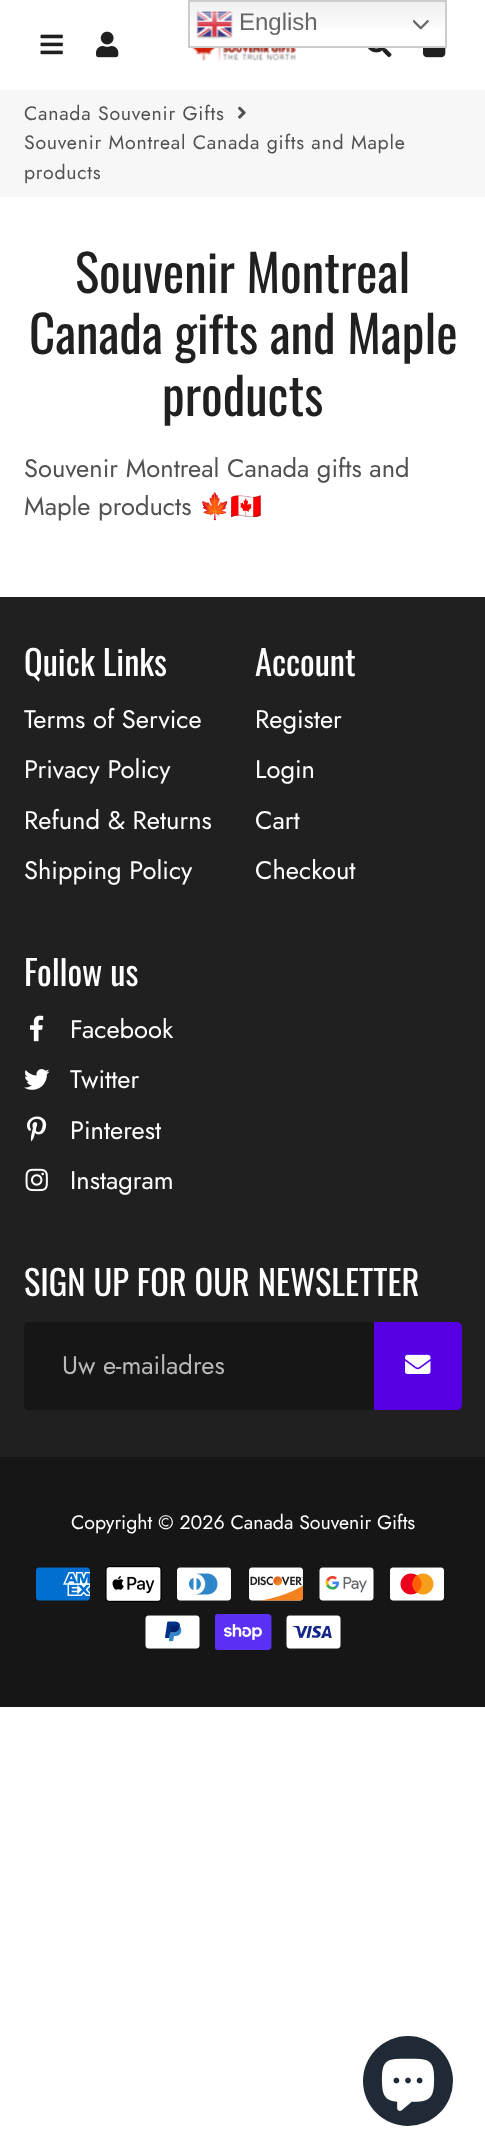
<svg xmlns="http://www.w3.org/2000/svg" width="485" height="2156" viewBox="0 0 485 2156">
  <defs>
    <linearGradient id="g1" gradientUnits="userSpaceOnUse" x1="317" y1="0" x2="317" y2="48"><stop offset="0" stop-color="#efefef"/><stop offset="0.7" stop-color="#ffffff"/></linearGradient>
  </defs>
  <rect width="100%" height="100%" fill="#ffffff"/>
  <rect x="190" y="2" width="255" height="26" fill="url(#g1)"/>
  <rect x="189" y="1" width="257" height="46" fill="none" stroke="#cccccc" stroke-width="2"/>
  <image x="196" y="11" width="37" height="28" href="img1.png"/>
  <text x="239" y="30" font-family="Liberation Sans" font-size="24" fill="#666666">English</text>
  <image x="413" y="20" width="16" height="10" href="img2.png"/>
  <image x="40" y="34" width="23" height="21" href="img3.png"/>
  <image x="96" y="31" width="23" height="27" href="img4.png"/>
  <image x="191" y="48" width="105" height="14" href="img5.png"/>
  <image x="368" y="48" width="24" height="10" href="img6.png"/>
  <image x="423" y="48" width="23" height="10" href="img7.png"/>
  <rect x="0" y="90" width="485" height="107" fill="#f7f7f7"/>
  <text x="24" y="120" font-family="Jost" font-size="19.5" letter-spacing="0.75" fill="#515151">Canada Souvenir Gifts</text>
  <image x="238" y="106" width="8" height="13" href="img8.png"/>
  <text x="24" y="149" font-family="Jost" font-size="19.5" letter-spacing="0.75" fill="#515151">Souvenir Montreal Canada gifts and Maple</text>
  <text x="24" y="179" font-family="Jost" font-size="19.5" letter-spacing="0.75" fill="#515151">products</text>
  <text x="75" y="293" font-family="Oswald" font-size="51" fill="#202020">Souvenir Montreal</text>
  <text x="29" y="354" font-family="Oswald" font-size="51" fill="#202020">Canada gifts and Maple</text>
  <text x="162" y="416" font-family="Oswald" font-size="51" fill="#202020">products</text>
  <text x="24" y="477" font-family="Jost" font-size="25.5" fill="#515151">Souvenir Montreal Canada gifts and</text>
  <text x="24" y="515" font-family="Jost" font-size="25.5" fill="#515151">Maple products</text>
  <text x="199" y="515" font-family="Noto Color Emoji" font-size="25.5" fill="#515151">🍁🇨🇦</text>
  <rect x="0" y="597" width="485" height="860" fill="#202020"/>
  <text x="24" y="676" font-family="Oswald" font-size="34.5" fill="#ffffff">Quick Links</text>
  <text x="24" y="728" font-family="Jost" font-size="25.5" fill="#ffffff">Terms of Service</text>
  <text x="24" y="778" font-family="Jost" font-size="25.5" fill="#ffffff">Privacy Policy</text>
  <text x="24" y="829" font-family="Jost" font-size="25.5" fill="#ffffff">Refund &amp; Returns</text>
  <text x="24" y="879" font-family="Jost" font-size="25.5" fill="#ffffff">Shipping Policy</text>
  <text x="255" y="676" font-family="Oswald" font-size="34.5" fill="#ffffff">Account</text>
  <text x="255" y="728" font-family="Jost" font-size="25.5" fill="#ffffff">Register</text>
  <text x="255" y="778" font-family="Jost" font-size="25.5" fill="#ffffff">Login</text>
  <text x="255" y="829" font-family="Jost" font-size="25.5" fill="#ffffff">Cart</text>
  <text x="255" y="879" font-family="Jost" font-size="25.5" fill="#ffffff">Checkout</text>
  <text x="24" y="986" font-family="Oswald" font-size="34.5" fill="#ffffff">Follow us</text>
  <image x="30" y="1015" width="14" height="27" href="img9.png"/>
  <text x="70" y="1038" font-family="Jost" font-size="25.5" fill="#ffffff">Facebook</text>
  <image x="24" y="1069" width="26" height="21" href="img10.png"/>
  <text x="70" y="1088" font-family="Jost" font-size="25.5" fill="#ffffff">Twitter</text>
  <image x="27" y="1116" width="20" height="26" href="img11.png"/>
  <text x="70" y="1139" font-family="Jost" font-size="25.5" fill="#ffffff">Pinterest</text>
  <image x="25" y="1168" width="23" height="24" href="img12.png"/>
  <text x="70" y="1189" font-family="Jost" font-size="25.5" fill="#ffffff">Instagram</text>
  <text x="24" y="1296" font-family="Oswald" font-size="34.5" fill="#ffffff">SIGN UP FOR OUR NEWSLETTER</text>
  <path d="M29 1322H374V1410H29C26 1410 24 1408 24 1405V1327C24 1324 26 1322 29 1322Z" fill="#161616"/>
  <text x="62" y="1374" font-family="Jost" font-size="25.5" fill="#b9b9b9">Uw e-mailadres</text>
  <path d="M375 1323H457C459 1323 461 1325 461 1327V1405C461 1407 459 1409 457 1409H375Z" fill="#5600e3" stroke="#5600e3" stroke-width="2"/>
  <image x="405" y="1354" width="26" height="20" href="img13.png"/>
  <rect x="0" y="1457" width="485" height="250" fill="#161616"/>
  <text x="71" y="1529" font-family="Jost" font-size="19.5" fill="#ffffff">Copyright © 2026 Canada Souvenir Gifts</text>
  <image x="36" y="1567" width="54" height="34" href="img14.png"/>
  <image x="105" y="1566" width="57" height="36" href="img15.png"/>
  <image x="177" y="1567" width="54" height="34" href="img16.png"/>
  <image x="249" y="1567" width="55" height="34" href="img17.png"/>
  <image x="319" y="1567" width="55" height="34" href="img18.png"/>
  <image x="390" y="1567" width="54" height="34" href="img19.png"/>
  <image x="145" y="1615" width="55" height="34" href="img20.png"/>
  <image x="215" y="1614" width="57" height="36" href="img21.png"/>
  <image x="286" y="1615" width="55" height="34" href="img22.png"/>
  <circle cx="408" cy="2081" r="45" fill="#202a36"/>
  <image x="381" y="2058" width="54" height="53" href="img23.png"/>
</svg>
